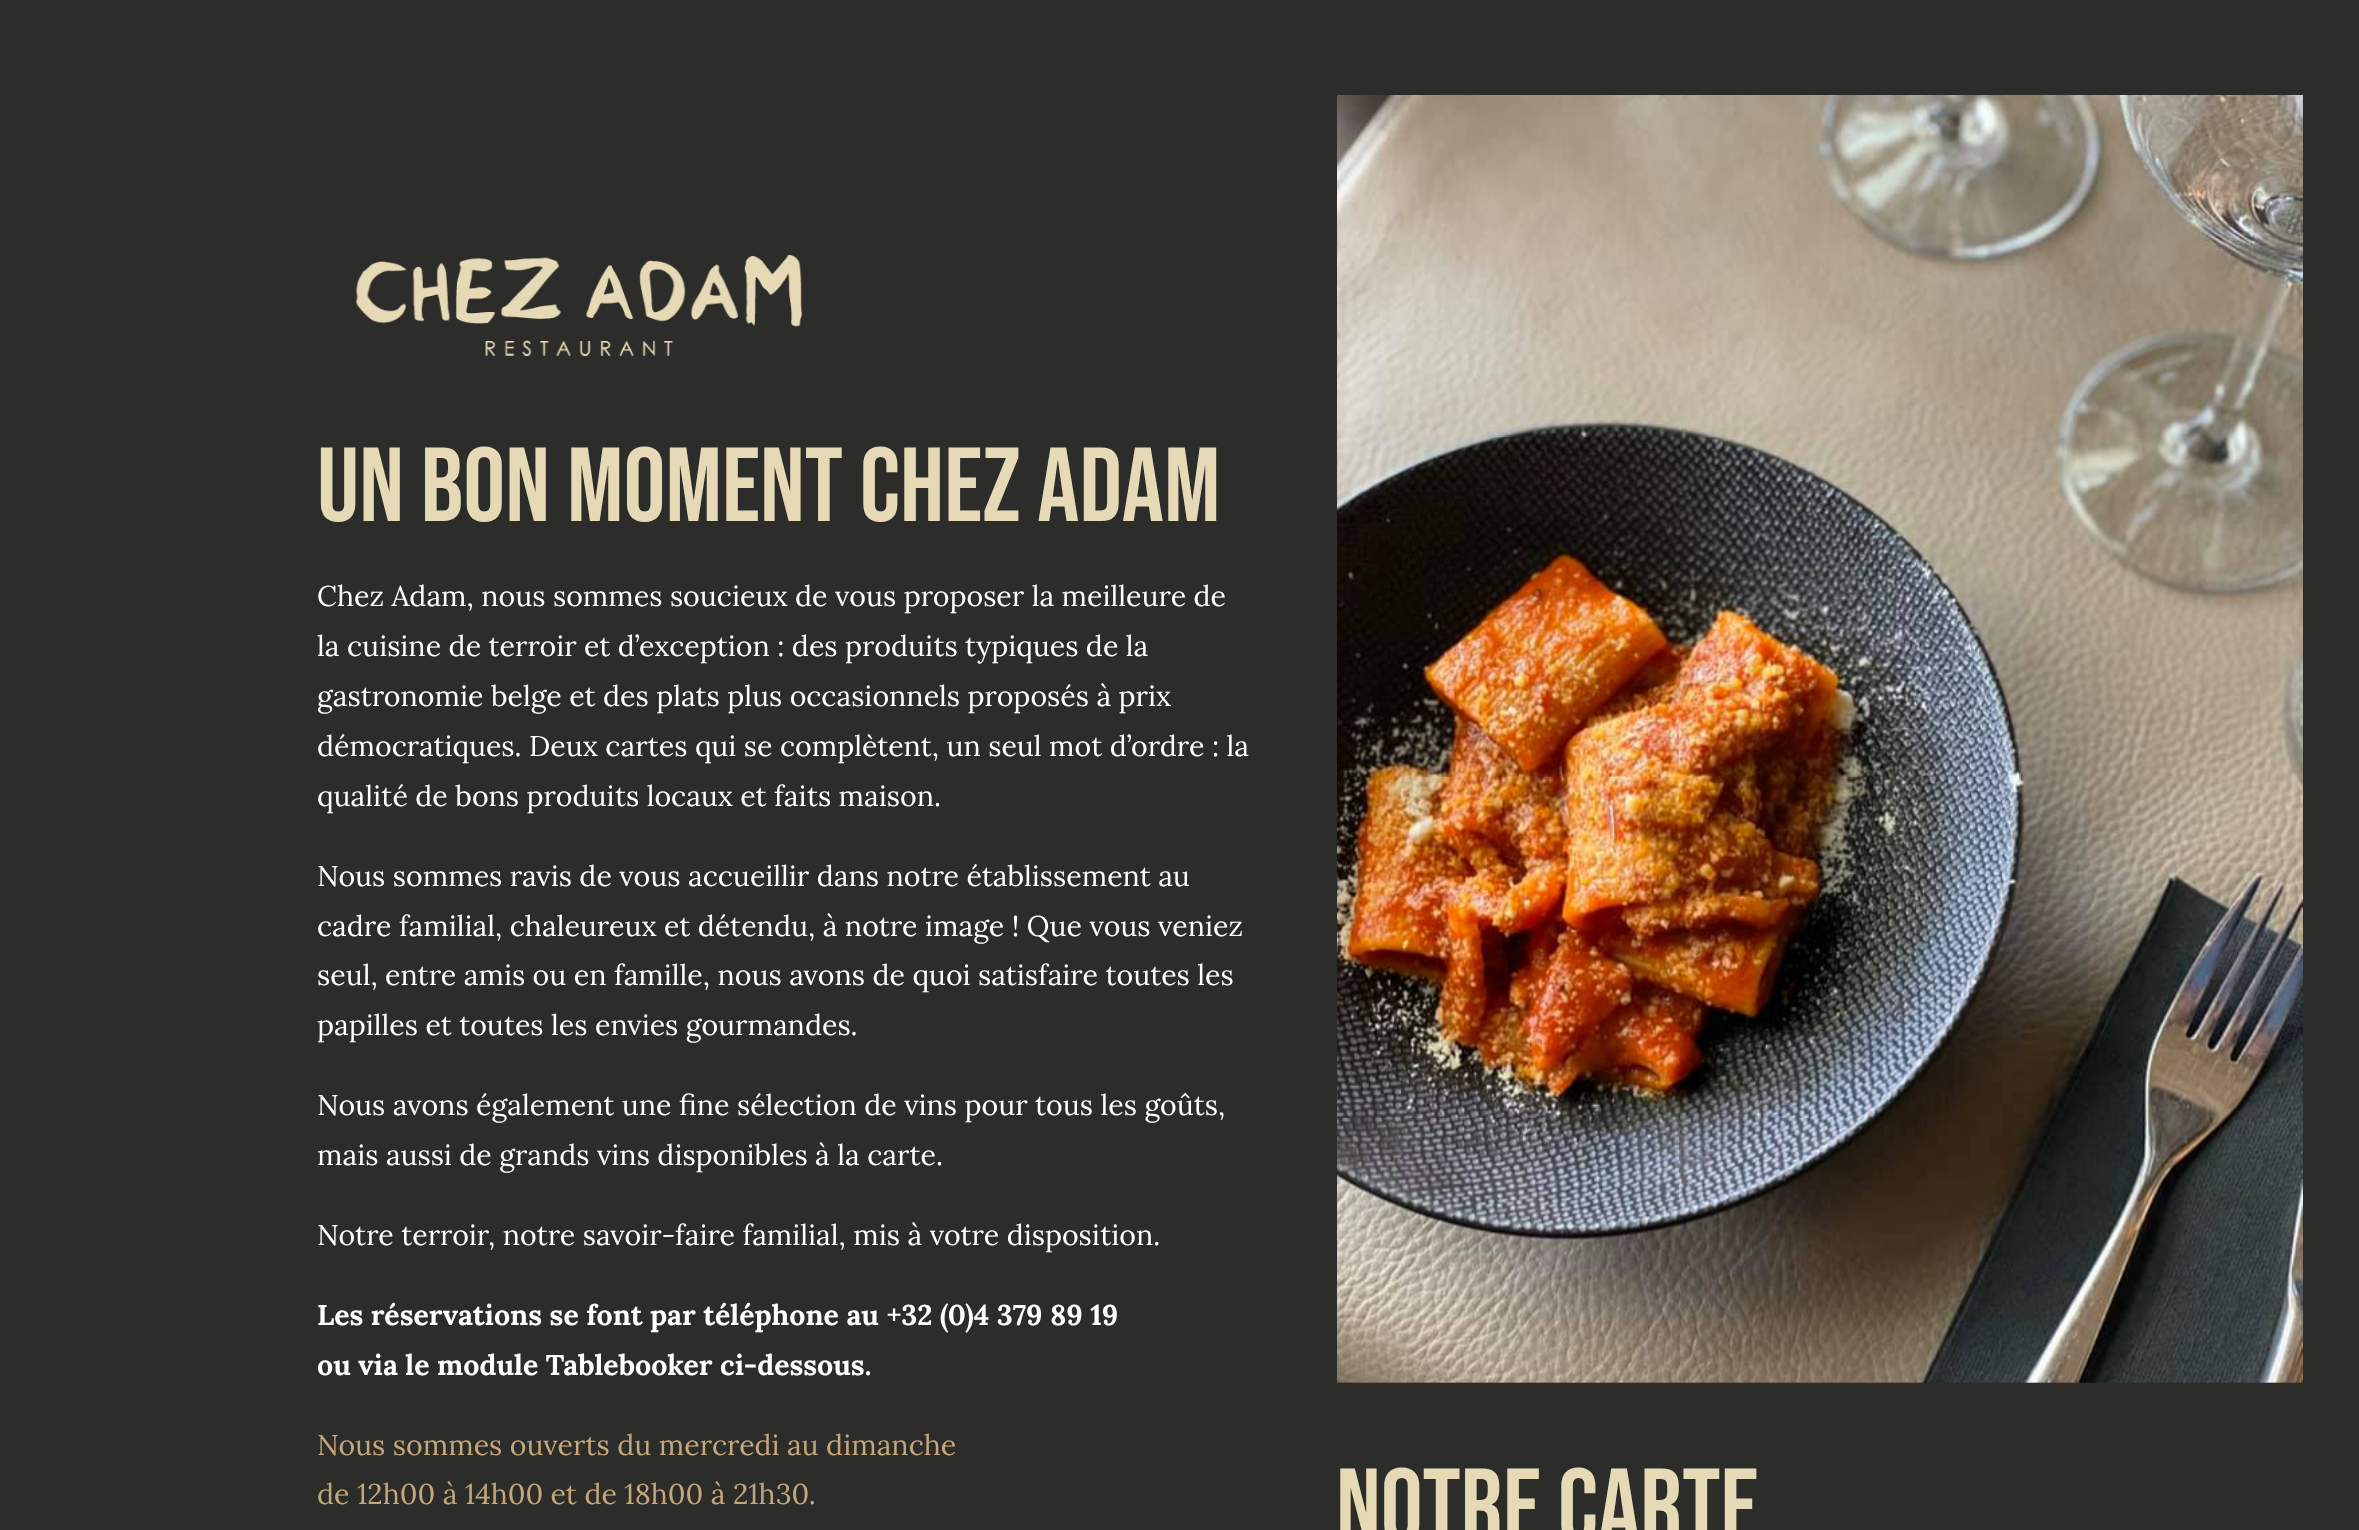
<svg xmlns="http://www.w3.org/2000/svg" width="2359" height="1530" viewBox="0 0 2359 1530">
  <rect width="100%" height="100%" fill="#2c2c2a"/>
  <image x="355" y="255" width="448" height="101" href="img1.png"/>
  <text x="317" y="521" font-family="Bebas Neue" font-size="105" fill="#e6d9b5">Un bon moment Chez Adam</text>
  <text x="317" y="606" font-family="Lora" font-size="28.5" fill="#ffffff">Chez Adam, nous sommes soucieux de vous proposer la meilleure de</text>
  <text x="317" y="656" font-family="Lora" font-size="28.5" fill="#ffffff">la cuisine de terroir et d’exception : des produits typiques de la</text>
  <text x="317" y="706" font-family="Lora" font-size="28.5" fill="#ffffff">gastronomie belge et des plats plus occasionnels proposés à prix</text>
  <text x="317" y="756" font-family="Lora" font-size="28.5" fill="#ffffff">démocratiques. Deux cartes qui se complètent, un seul mot d’ordre : la</text>
  <text x="317" y="806" font-family="Lora" font-size="28.5" fill="#ffffff">qualité de bons produits locaux et faits maison.</text>
  <text x="317" y="886" font-family="Lora" font-size="28.5" fill="#ffffff">Nous sommes ravis de vous accueillir dans notre établissement au</text>
  <text x="317" y="936" font-family="Lora" font-size="28.5" fill="#ffffff">cadre familial, chaleureux et détendu, à notre image ! Que vous veniez</text>
  <text x="317" y="985" font-family="Lora" font-size="28.5" fill="#ffffff">seul, entre amis ou en famille, nous avons de quoi satisfaire toutes les</text>
  <text x="317" y="1035" font-family="Lora" font-size="28.5" fill="#ffffff">papilles et toutes les envies gourmandes.</text>
  <text x="317" y="1115" font-family="Lora" font-size="28.5" fill="#ffffff">Nous avons également une fine sélection de vins pour tous les goûts,</text>
  <text x="317" y="1165" font-family="Lora" font-size="28.5" fill="#ffffff">mais aussi de grands vins disponibles à la carte.</text>
  <text x="317" y="1245" font-family="Lora" font-size="28.5" fill="#ffffff">Notre terroir, notre savoir-faire familial, mis à votre disposition.</text>
  <text x="317" y="1325" font-family="Lora" font-size="28.5" font-weight="bold" fill="#ffffff">Les réservations se font par téléphone au +32 (0)4 379 89 19</text>
  <text x="317" y="1375" font-family="Lora" font-size="28.5" font-weight="bold" fill="#ffffff">ou via le module Tablebooker ci-dessous.</text>
  <text x="317" y="1455" font-family="Lora" font-size="28.5" fill="#c6a77a">Nous sommes ouverts du mercredi au dimanche</text>
  <text x="317" y="1504" font-family="Lora" font-size="28.5" fill="#c6a77a">de 12h00 à 14h00 et de 18h00 à 21h30.</text>
  <image x="1337" y="95" width="966" height="1288" href="img2.png"/>
  <text x="1336" y="1542" font-family="Bebas Neue" font-size="105" fill="#e6d9b5">Notre carte</text>
</svg>
